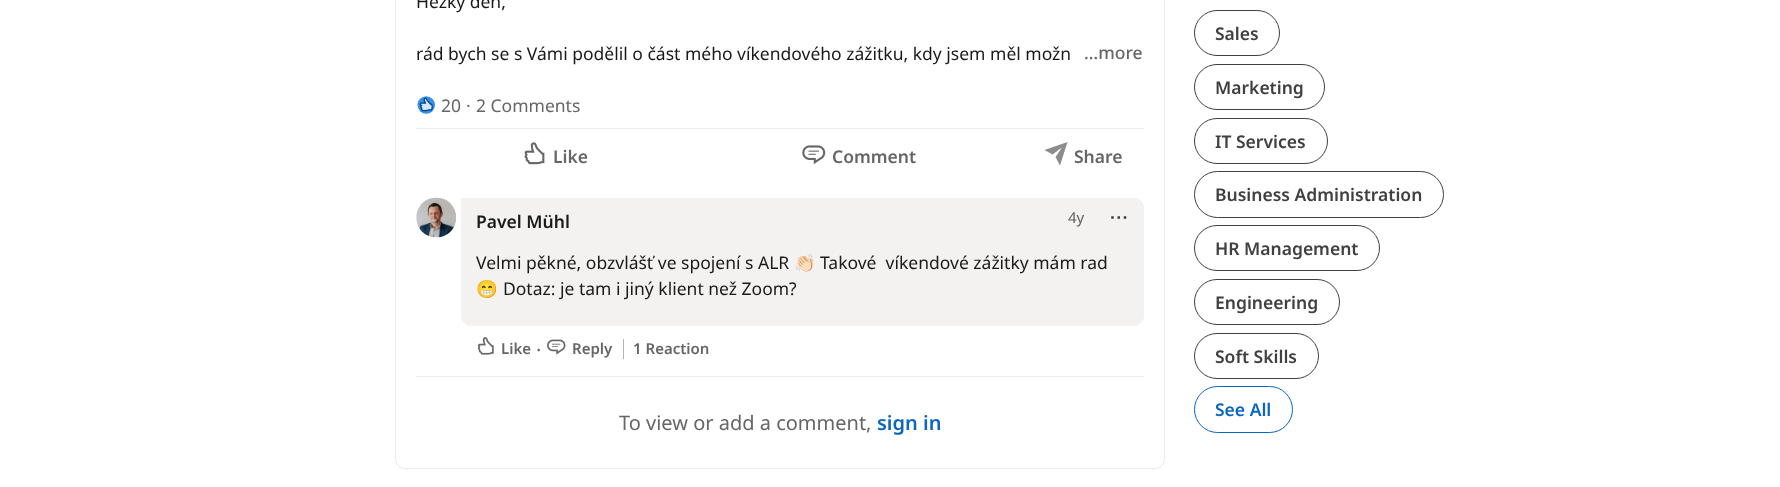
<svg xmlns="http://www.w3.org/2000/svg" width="1780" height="487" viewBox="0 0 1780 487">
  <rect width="100%" height="100%" fill="#ffffff"/>
  <rect x="395.5" y="-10.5" width="769" height="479" rx="9.5" fill="none" stroke="#ebebeb"/>
  <text x="416" y="8" font-family="Noto Sans" font-size="17.5" fill="#1a1a1a">Hezký den,</text>
  <text x="416" y="60" font-family="Noto Sans" font-size="17.5" fill="#1a1a1a">rád bych se s Vámi podělil o část mého víkendového zážitku, kdy jsem měl možn</text>
  <text x="1084" y="59" font-family="Noto Sans" font-size="17.5" font-weight="500" fill="#666666">…more</text>
  <image x="417" y="96" width="18" height="18" href="img1.png"/>
  <text x="441" y="112" font-family="Noto Sans" font-size="17.5" fill="#666666">20</text>
  <text x="466" y="112" font-family="Noto Sans" font-size="17.5" fill="#666666">·</text>
  <text x="476" y="112" font-family="Noto Sans" font-size="17.5" fill="#666666">2 Comments</text>
  <rect x="416" y="128" width="728" height="1" fill="#ebebeb"/>
  <image x="524" y="142" width="21" height="23" href="img2.png"/>
  <text x="553" y="163" font-family="Noto Sans" font-size="17.5" font-weight="600" fill="#666666">Like</text>
  <image x="802" y="145" width="24" height="19" href="img3.png"/>
  <text x="832" y="163" font-family="Noto Sans" font-size="17.5" font-weight="600" fill="#666666">Comment</text>
  <path d="M1067.5 142L1044.5 150L1052.5 154.5L1062 147.5L1055.5 157L1060 165.5Z" fill="#8c8c8c"/>
  <text x="1074" y="163" font-family="Noto Sans" font-size="17.5" font-weight="600" fill="#666666">Share</text>
  <image x="416" y="197" width="41" height="41" href="img4.png"/>
  <path d="M461 198H1134C1139.5 198 1144 202.5 1144 208V316C1144 321.5 1139.5 326 1134 326H471C465.5 326 461 321.5 461 316Z" fill="#f3f2f0"/>
  <text x="476" y="228" font-family="Noto Sans" font-size="17.5" font-weight="600" fill="#1a1a1a">Pavel Mühl</text>
  <text x="1068" y="223" font-family="Noto Sans" font-size="15" fill="#616160">4y</text>
  <image x="1111" y="216" width="16" height="3" href="img5.png"/>
  <text x="476" y="269" font-family="Noto Sans" font-size="17.5" fill="#1a1a1a">Velmi pěkné, obzvlášť ve spojení s ALR</text>
  <text x="794" y="269" font-family="Noto Color Emoji" font-size="17.5" fill="#1a1a1a">👏🏻</text>
  <text x="820" y="269" font-family="Noto Sans" font-size="17.5" fill="#1a1a1a" xml:space="preserve">Takové  víkendové zážitky mám rad</text>
  <text x="476" y="295" font-family="Noto Color Emoji" font-size="17.5" fill="#1a1a1a">😁</text>
  <text x="503" y="295" font-family="Noto Sans" font-size="17.5" fill="#1a1a1a">Dotaz: je tam i jiný klient než Zoom?</text>
  <image x="477" y="337" width="17" height="18" href="img6.png"/>
  <text x="501" y="354" font-family="Noto Sans" font-size="15" font-weight="600" fill="#666666">Like</text>
  <text x="536" y="357" font-family="Noto Sans" font-size="20" fill="#666666">·</text>
  <image x="547" y="339" width="19" height="16" href="img7.png"/>
  <text x="572" y="354" font-family="Noto Sans" font-size="15" font-weight="600" fill="#666666">Reply</text>
  <rect x="623" y="339" width="1" height="20" fill="#b3b3b3"/>
  <text x="633" y="354" font-family="Noto Sans" font-size="15" font-weight="600" fill="#666666">1 Reaction</text>
  <rect x="416" y="376" width="728" height="1" fill="#ebebeb"/>
  <text x="619" y="430" font-family="Noto Sans" font-size="20" fill="#666666">To view or add a comment,</text>
  <text x="877" y="430" font-family="Noto Sans" font-size="20" font-weight="600" fill="#0a66c2">sign in</text>
  <rect x="1194.5" y="10.5" width="85" height="45" rx="22.5" fill="none" stroke="#404040"/>
  <text x="1215" y="40" font-family="Noto Sans" font-size="17.5" font-weight="600" fill="#404040">Sales</text>
  <rect x="1194.5" y="64.5" width="130" height="45" rx="22.5" fill="none" stroke="#404040"/>
  <text x="1215" y="94" font-family="Noto Sans" font-size="17.5" font-weight="600" fill="#404040">Marketing</text>
  <rect x="1194.5" y="118.5" width="133" height="45" rx="22.5" fill="none" stroke="#404040"/>
  <text x="1215" y="148" font-family="Noto Sans" font-size="17.5" font-weight="600" fill="#404040">IT Services</text>
  <rect x="1194.5" y="171.5" width="249" height="46" rx="23" fill="none" stroke="#404040"/>
  <text x="1215" y="201" font-family="Noto Sans" font-size="17.5" font-weight="600" fill="#404040">Business Administration</text>
  <rect x="1194.5" y="225.5" width="185" height="45" rx="22.5" fill="none" stroke="#404040"/>
  <text x="1215" y="255" font-family="Noto Sans" font-size="17.5" font-weight="600" fill="#404040">HR Management</text>
  <rect x="1194.5" y="279.5" width="145" height="45" rx="22.5" fill="none" stroke="#404040"/>
  <text x="1215" y="309" font-family="Noto Sans" font-size="17.5" font-weight="600" fill="#404040">Engineering</text>
  <rect x="1194.5" y="333.5" width="124" height="45" rx="22.5" fill="none" stroke="#404040"/>
  <text x="1215" y="363" font-family="Noto Sans" font-size="17.5" font-weight="600" fill="#404040">Soft Skills</text>
  <rect x="1194.5" y="386.5" width="98" height="46" rx="23" fill="none" stroke="#0a66c2"/>
  <text x="1215" y="416" font-family="Noto Sans" font-size="17.5" font-weight="600" fill="#0a66c2">See All</text>
</svg>
